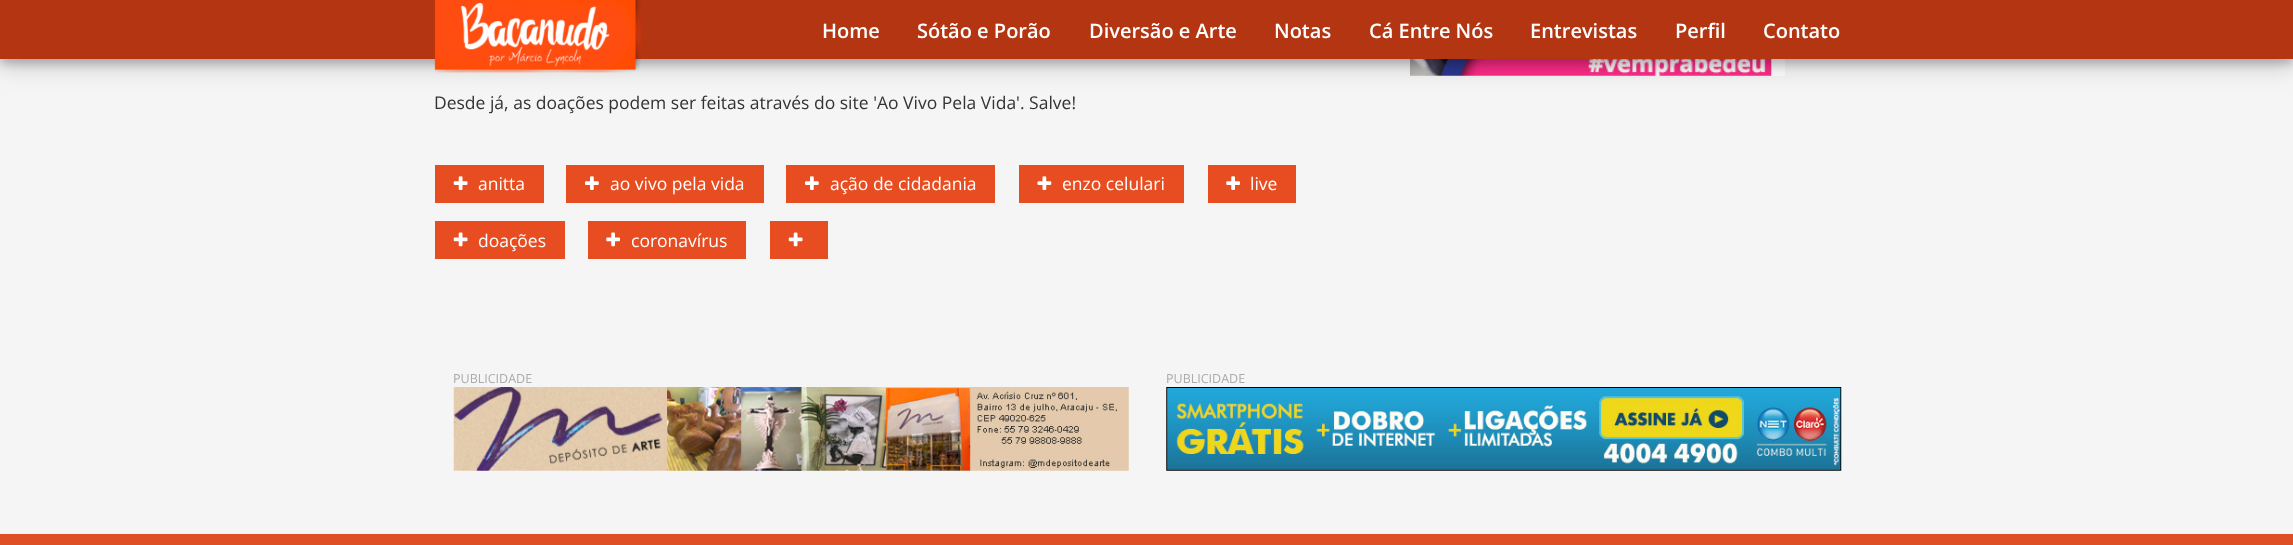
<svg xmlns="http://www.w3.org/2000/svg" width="2293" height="545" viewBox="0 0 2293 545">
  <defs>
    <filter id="blur1" x="-50%" y="-200%" width="200%" height="500%"><feGaussianBlur stdDeviation="12.5"/></filter>
    <filter id="blur2" x="-50%" y="-200%" width="200%" height="500%"><feGaussianBlur stdDeviation="5"/></filter>
  </defs>
  <rect width="100%" height="100%" fill="#f5f5f5"/>
  <image x="1410" y="59" width="375" height="17" href="img2.png"/>
  <rect x="0" y="8" width="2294" height="58" fill="#000000" fill-opacity="0.19" filter="url(#blur1)"/>
  <rect x="0" y="5" width="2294" height="59" fill="#000000" fill-opacity="0.2" filter="url(#blur2)"/>
  <rect x="0" y="0" width="2293" height="59" fill="#b33511"/>
  <image x="434" y="0" width="207" height="73" href="img1.png"/>
  <text x="822" y="38" font-family="Open Sans" font-size="20" font-weight="600" fill="#ffffff">Home</text>
  <text x="917" y="38" font-family="Open Sans" font-size="20" font-weight="600" fill="#ffffff">Sótão e Porão</text>
  <text x="1089" y="38" font-family="Open Sans" font-size="20" font-weight="600" fill="#ffffff">Diversão e Arte</text>
  <text x="1274" y="38" font-family="Open Sans" font-size="20" font-weight="600" fill="#ffffff">Notas</text>
  <text x="1369" y="38" font-family="Open Sans" font-size="20" font-weight="600" fill="#ffffff">Cá Entre Nós</text>
  <text x="1530" y="38" font-family="Open Sans" font-size="20" font-weight="600" fill="#ffffff">Entrevistas</text>
  <text x="1675" y="38" font-family="Open Sans" font-size="20" font-weight="600" fill="#ffffff">Perfil</text>
  <text x="1763" y="38" font-family="Open Sans" font-size="20" font-weight="600" fill="#ffffff">Contato</text>
  <text x="434" y="109" font-family="Open Sans" font-size="17.5" fill="#333333">Desde já, as doações podem ser feitas através do site 'Ao Vivo Pela Vida'. Salve!</text>
  <rect x="435" y="165" width="109" height="38" fill="#e74d21"/>
  <image x="453" y="176" width="15" height="14" href="img3.png"/>
  <text x="478" y="190" font-family="Open Sans" font-size="17.5" fill="#ffffff">anitta</text>
  <rect x="566" y="165" width="198" height="38" fill="#e74d21"/>
  <image x="585" y="176" width="14" height="14" href="img4.png"/>
  <text x="610" y="190" font-family="Open Sans" font-size="17.5" fill="#ffffff">ao vivo pela vida</text>
  <rect x="786" y="165" width="209" height="38" fill="#e74d21"/>
  <image x="805" y="176" width="14" height="14" href="img4.png"/>
  <text x="830" y="190" font-family="Open Sans" font-size="17.5" fill="#ffffff">ação de cidadania</text>
  <rect x="1019" y="165" width="165" height="38" fill="#e74d21"/>
  <image x="1037" y="176" width="15" height="14" href="img5.png"/>
  <text x="1062" y="190" font-family="Open Sans" font-size="17.5" fill="#ffffff">enzo celulari</text>
  <rect x="1208" y="165" width="88" height="38" fill="#e74d21"/>
  <image x="1226" y="176" width="14" height="14" href="img6.png"/>
  <text x="1250" y="190" font-family="Open Sans" font-size="17.5" fill="#ffffff">live</text>
  <rect x="435" y="221" width="130" height="38" fill="#e74d21"/>
  <image x="453" y="232" width="15" height="15" href="img7.png"/>
  <text x="478" y="247" font-family="Open Sans" font-size="17.5" fill="#ffffff">doações</text>
  <rect x="588" y="221" width="158" height="38" fill="#e74d21"/>
  <image x="606" y="232" width="14" height="15" href="img8.png"/>
  <text x="631" y="247" font-family="Open Sans" font-size="17.5" fill="#ffffff">coronavírus</text>
  <rect x="770" y="221" width="58" height="38" fill="#e74d21"/>
  <image x="788" y="232" width="15" height="15" href="img7.png"/>
  <text x="453" y="383" font-family="Open Sans" font-size="12.5" fill="#ababab">PUBLICIDADE</text>
  <image x="453" y="387" width="676" height="84" href="img9.png"/>
  <text x="1166" y="383" font-family="Open Sans" font-size="12.5" fill="#ababab">PUBLICIDADE</text>
  <image x="1166" y="387" width="676" height="84" href="img10.png"/>
  <rect x="0" y="534" width="2293" height="11" fill="#de4f26"/>
</svg>
